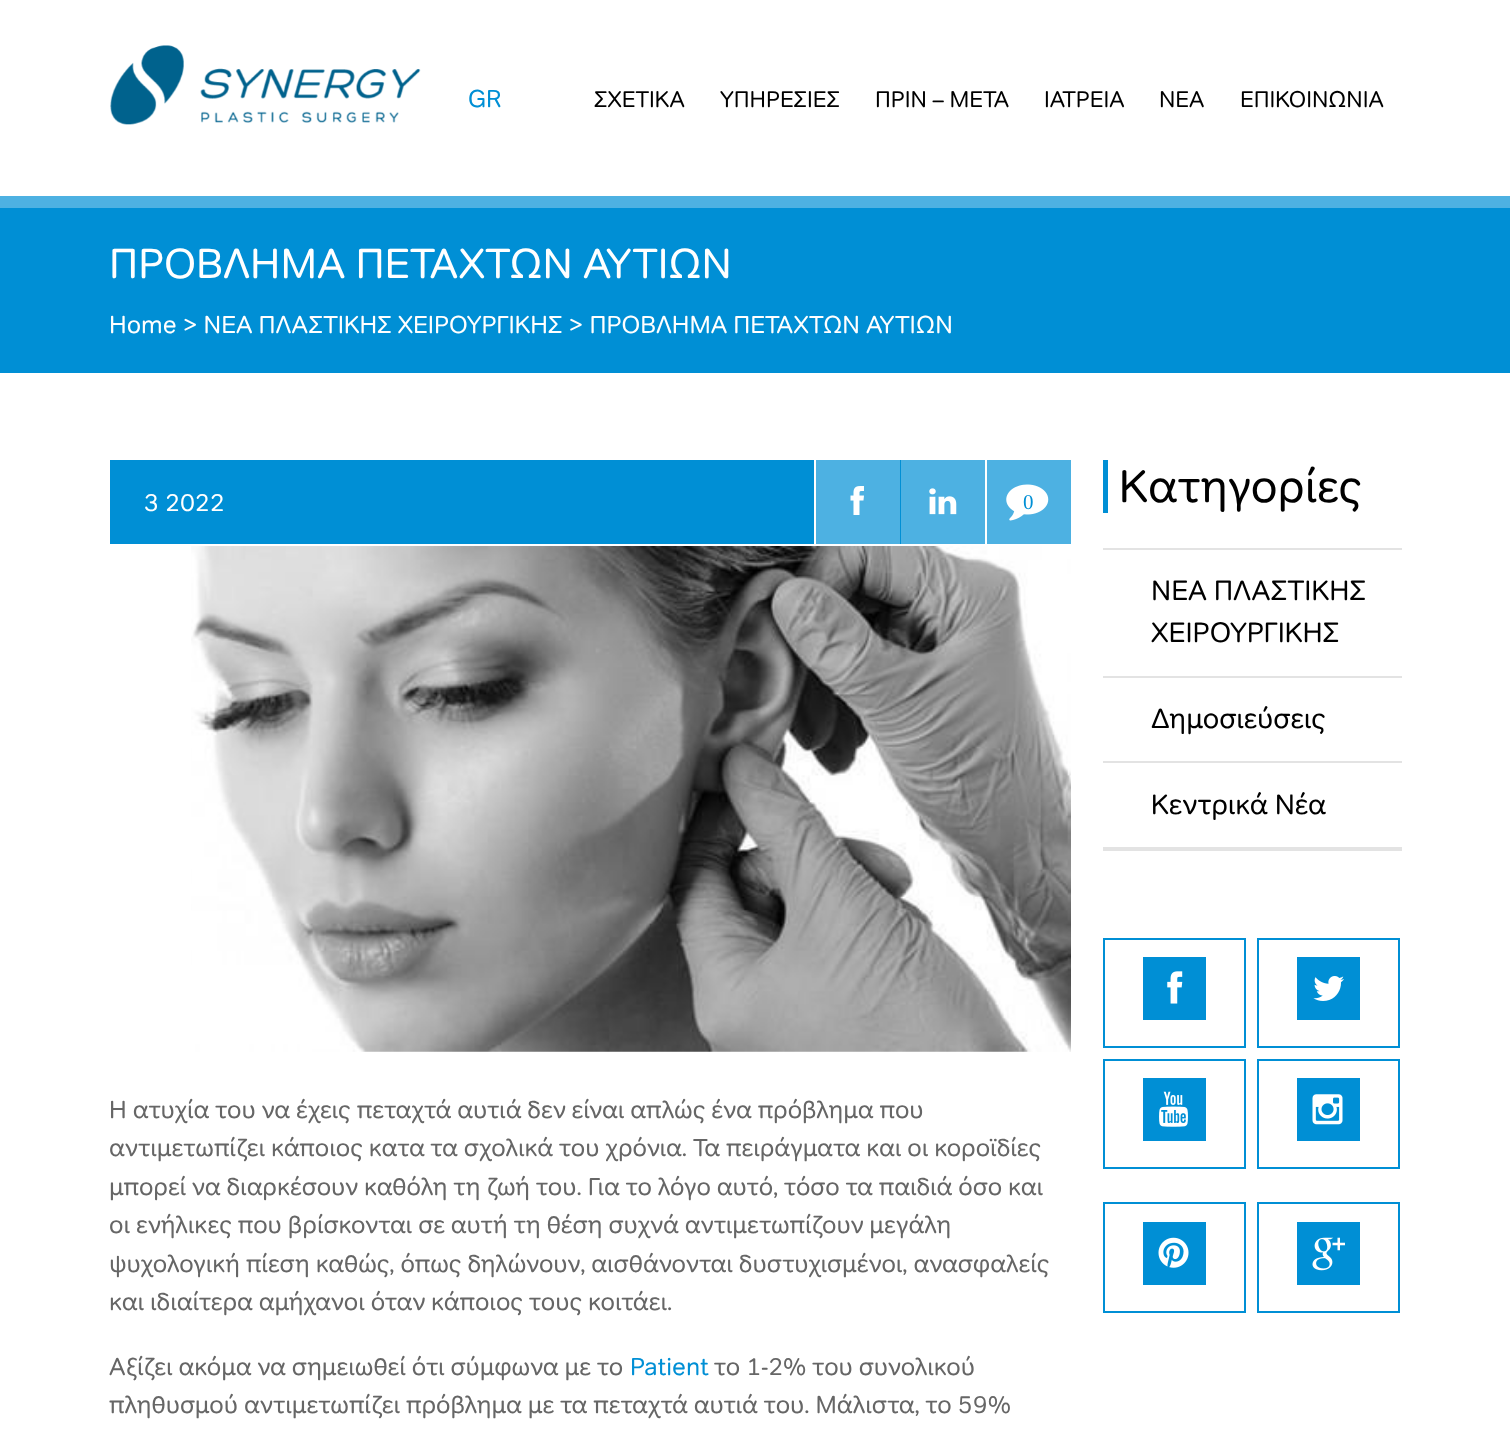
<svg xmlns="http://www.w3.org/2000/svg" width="1510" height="1443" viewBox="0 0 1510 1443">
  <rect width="100%" height="100%" fill="#ffffff"/>
  <image x="110" y="45" width="311" height="80" href="img1.png"/>
  <text x="468" y="107" font-family="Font" font-size="24.5" fill="#008fd5">GR</text>
  <text x="594" y="107" font-family="Font" font-size="22.75" fill="#000000">ΣΧΕΤΙΚΑ</text>
  <text x="720" y="107" font-family="Font" font-size="22.75" fill="#000000">ΥΠΗΡΕΣΙΕΣ</text>
  <text x="875" y="107" font-family="Font" font-size="22.75" fill="#000000">ΠΡΙΝ – ΜΕΤΑ</text>
  <text x="1044" y="107" font-family="Font" font-size="22.75" fill="#000000">ΙΑΤΡΕΙΑ</text>
  <text x="1159" y="107" font-family="Font" font-size="22.75" fill="#000000">NEA</text>
  <text x="1240" y="107" font-family="Font" font-size="22.75" fill="#000000">ΕΠΙΚΟΙΝΩΝΙΑ</text>
  <rect x="0" y="208" width="1510" height="165" fill="#008fd5"/>
  <rect x="0" y="196" width="1510" height="12" fill="#4db1e2"/>
  <text x="109" y="278" font-family="Font" font-size="42" fill="#ffffff">ΠΡΟΒΛΗΜΑ ΠΕΤΑΧΤΩΝ ΑΥΤΙΩΝ</text>
  <text x="109" y="333" font-family="Font" font-size="24.5" fill="#ffffff">Home &gt; ΝΕΑ ΠΛΑΣΤΙΚΗΣ ΧΕΙΡΟΥΡΓΙΚΗΣ &gt; ΠΡΟΒΛΗΜΑ ΠΕΤΑΧΤΩΝ ΑΥΤΙΩΝ</text>
  <rect x="110" y="460" width="791" height="84" fill="#008fd5"/>
  <text x="144" y="511" font-family="Font" font-size="24.5" fill="#ffffff">3 2022</text>
  <rect x="814" y="460" width="2" height="84" fill="#ffffff"/>
  <rect x="816" y="460" width="84" height="84" fill="#4db1e2"/>
  <image x="850" y="486" width="14" height="29" href="img2.png"/>
  <rect x="901" y="460" width="84" height="84" fill="#4db1e2"/>
  <image x="929" y="488" width="28" height="27" href="img3.png"/>
  <rect x="987" y="460" width="84" height="84" fill="#4db1e2"/>
  <image x="1006" y="484" width="43" height="37" href="img4.png"/>
  <text x="1023" y="509" font-family="Liberation Serif" font-size="21" fill="#008fd5">0</text>
  <image x="191" y="546" width="880" height="506" href="img5.png"/>
  <text x="109" y="1118" font-family="Font" font-size="24.5" fill="#666666">Η ατυχία του να έχεις πεταχτά αυτιά δεν είναι απλώς ένα πρόβλημα που</text>
  <text x="109" y="1156" font-family="Font" font-size="24.5" fill="#666666">αντιμετωπίζει κάποιος κατα τα σχολικά του χρόνια. Τα πειράγματα και οι κοροϊδίες</text>
  <text x="109" y="1195" font-family="Font" font-size="24.5" fill="#666666">μπορεί να διαρκέσουν καθόλη τη ζωή του. Για το λόγο αυτό, τόσο τα παιδιά όσο και</text>
  <text x="109" y="1233" font-family="Font" font-size="24.5" fill="#666666">οι ενήλικες που βρίσκονται σε αυτή τη θέση συχνά αντιμετωπίζουν μεγάλη</text>
  <text x="109" y="1272" font-family="Font" font-size="24.5" fill="#666666">ψυχολογική πίεση καθώς, όπως δηλώνουν, αισθάνονται δυστυχισμένοι, ανασφαλείς</text>
  <text x="109" y="1310" font-family="Font" font-size="24.5" fill="#666666">και ιδιαίτερα αμήχανοι όταν κάποιος τους κοιτάει.</text>
  <text x="109" y="1375" font-family="Font" font-size="24.5" fill="#666666">Αξίζει ακόμα να σημειωθεί ότι σύμφωνα με το</text>
  <text x="630" y="1375" font-family="Font" font-size="24.5" fill="#008fd5">Patient</text>
  <text x="714" y="1375" font-family="Font" font-size="24.5" fill="#666666">το 1-2% του συνολικού</text>
  <text x="109" y="1413" font-family="Font" font-size="24.5" fill="#666666">πληθυσμού αντιμετωπίζει πρόβλημα με τα πεταχτά αυτιά του. Μάλιστα, το 59%</text>
  <rect x="1103" y="460" width="5" height="53" fill="#008fd5"/>
  <text x="1119" y="502" font-family="Font" font-size="45.5" fill="#000000">Κατηγορίες</text>
  <rect x="1103" y="548" width="299" height="2" fill="#e3e3e3"/>
  <rect x="1103" y="847" width="299" height="4" fill="#e3e3e3"/>
  <text x="1151" y="600" font-family="Font" font-size="28" fill="#000000">ΝΕΑ ΠΛΑΣΤΙΚΗΣ</text>
  <text x="1151" y="642" font-family="Font" font-size="28" fill="#000000">ΧΕΙΡΟΥΡΓΙΚΗΣ</text>
  <rect x="1103" y="676" width="299" height="2" fill="#e3e3e3"/>
  <rect x="1103" y="761" width="299" height="2" fill="#e3e3e3"/>
  <text x="1151" y="728" font-family="Font" font-size="28" fill="#000000">Δημοσιεύσεις</text>
  <text x="1151" y="814" font-family="Font" font-size="28" fill="#000000">Κεντρικά Νέα</text>
  <rect x="1104" y="939" width="141" height="108" fill="none" stroke="#008fd5" stroke-width="2"/>
  <rect x="1143" y="957" width="63" height="63" fill="#008fd5"/>
  <image x="1167" y="971" width="16" height="33" href="img6.png"/>
  <rect x="1258" y="939" width="141" height="108" fill="none" stroke="#008fd5" stroke-width="2"/>
  <rect x="1297" y="957" width="63" height="63" fill="#008fd5"/>
  <image x="1313" y="976" width="31" height="25" href="img7.png"/>
  <rect x="1104" y="1060" width="141" height="108" fill="none" stroke="#008fd5" stroke-width="2"/>
  <rect x="1143" y="1078" width="63" height="63" fill="#008fd5"/>
  <image x="1159" y="1091" width="29" height="36" href="img8.png"/>
  <rect x="1258" y="1060" width="141" height="108" fill="none" stroke="#008fd5" stroke-width="2"/>
  <rect x="1297" y="1078" width="63" height="63" fill="#008fd5"/>
  <image x="1312" y="1094" width="31" height="31" href="img9.png"/>
  <rect x="1104" y="1203" width="141" height="109" fill="none" stroke="#008fd5" stroke-width="2"/>
  <rect x="1143" y="1222" width="63" height="63" fill="#008fd5"/>
  <image x="1158" y="1237" width="31" height="31" href="img10.png"/>
  <rect x="1258" y="1203" width="141" height="109" fill="none" stroke="#008fd5" stroke-width="2"/>
  <rect x="1297" y="1222" width="63" height="63" fill="#008fd5"/>
  <image x="1312" y="1237" width="33" height="34" href="img11.png"/>
</svg>
